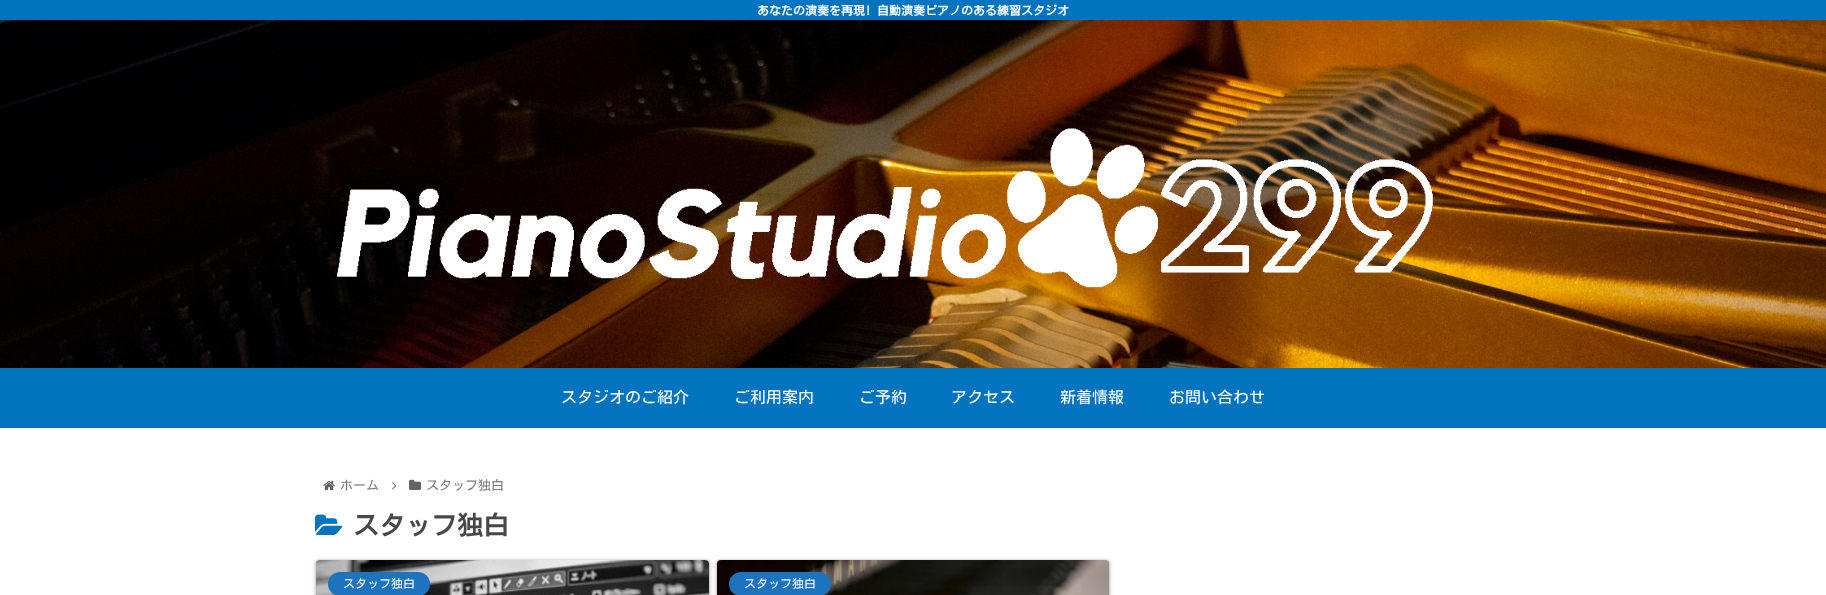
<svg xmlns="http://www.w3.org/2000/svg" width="1826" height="595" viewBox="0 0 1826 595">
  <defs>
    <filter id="blur1" x="-50%" y="-200%" width="200%" height="500%"><feGaussianBlur stdDeviation="2.5"/></filter>
    <filter id="blur2" x="-50%" y="-200%" width="200%" height="500%"><feGaussianBlur stdDeviation="1"/></filter>
  </defs>
  <rect width="100%" height="100%" fill="#ffffff"/>
  <rect x="0" y="0" width="1826" height="428" fill="#0173bf"/>
  <image x="0" y="20" width="1826" height="348" href="img1.png"/>
  <text x="757" y="15" font-family="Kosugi" font-size="12" font-weight="bold" fill="#ffffff">あなたの演奏を再現! 自動演奏ピアノのある練習スタジオ</text>
  <image x="337" y="128" width="1096" height="160" href="img2.png"/>
  <text x="561" y="403" font-family="Kosugi" font-size="16" fill="#ffffff">スタジオのご紹介</text>
  <text x="734" y="403" font-family="Kosugi" font-size="16" fill="#ffffff">ご利用案内</text>
  <text x="859" y="403" font-family="Kosugi" font-size="16" fill="#ffffff">ご予約</text>
  <text x="951" y="403" font-family="Kosugi" font-size="16" fill="#ffffff">アクセス</text>
  <text x="1060" y="403" font-family="Kosugi" font-size="16" fill="#ffffff">新着情報</text>
  <text x="1169" y="403" font-family="Kosugi" font-size="16" fill="#ffffff">お問い合わせ</text>
  <image x="323" y="480" width="12" height="10" href="img3.png"/>
  <text x="340" y="490" font-family="Kosugi" font-size="13" fill="#7b7b7b">ホーム</text>
  <image x="392" y="482" width="5" height="8" href="img4.png"/>
  <image x="409" y="479" width="13" height="11" href="img5.png"/>
  <text x="426" y="490" font-family="Kosugi" font-size="13" fill="#7b7b7b">スタッフ独白</text>
  <image x="315" y="514" width="28" height="21" href="img6.png"/>
  <text x="353" y="535" font-family="Kosugi" font-size="26" font-weight="bold" fill="#484848">スタッフ独白</text>
  <rect x="315" y="560" width="395" height="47" rx="4" fill="#000000" fill-opacity="0.12" filter="url(#blur1)"/>
  <rect x="315" y="561" width="395" height="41" rx="4" fill="#000000" fill-opacity="0.14" filter="url(#blur2)"/>
  <path d="M316.5 560.5L319 559.5H706L708.5 560.5" fill="none" stroke="#e3e3e3"/>
  <path d="M708.5 560.5L709.5 563V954L708.5 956.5" fill="none" stroke="#cecece"/>
  <path d="M316.5 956.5L315.5 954V563L316.5 560.5" fill="none" stroke="#d6d6d6"/>
  <rect x="716" y="560" width="394" height="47" rx="4" fill="#000000" fill-opacity="0.12" filter="url(#blur1)"/>
  <image x="316" y="560" width="393" height="35" href="img7.png"/>
  <rect x="328" y="572" width="102" height="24" rx="12" fill="#1e73be"/>
  <text x="343" y="588" font-family="Kosugi" font-size="12" fill="#ffffff">スタッフ独白</text>
  <rect x="716" y="561" width="394" height="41" rx="4" fill="#000000" fill-opacity="0.14" filter="url(#blur2)"/>
  <path d="M717.5 560.5L720 559.5H1106L1108.5 560.5" fill="none" stroke="#e3e3e3"/>
  <path d="M1108.5 560.5L1109.5 563V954L1108.5 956.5" fill="none" stroke="#cecece"/>
  <path d="M717.5 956.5L716.5 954V563L717.5 560.5" fill="none" stroke="#d6d6d6"/>
  <image x="717" y="560" width="392" height="35" href="img8.png"/>
  <rect x="729" y="572" width="102" height="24" rx="12" fill="#1e73be"/>
  <text x="744" y="588" font-family="Kosugi" font-size="12" fill="#ffffff">スタッフ独白</text>
</svg>
